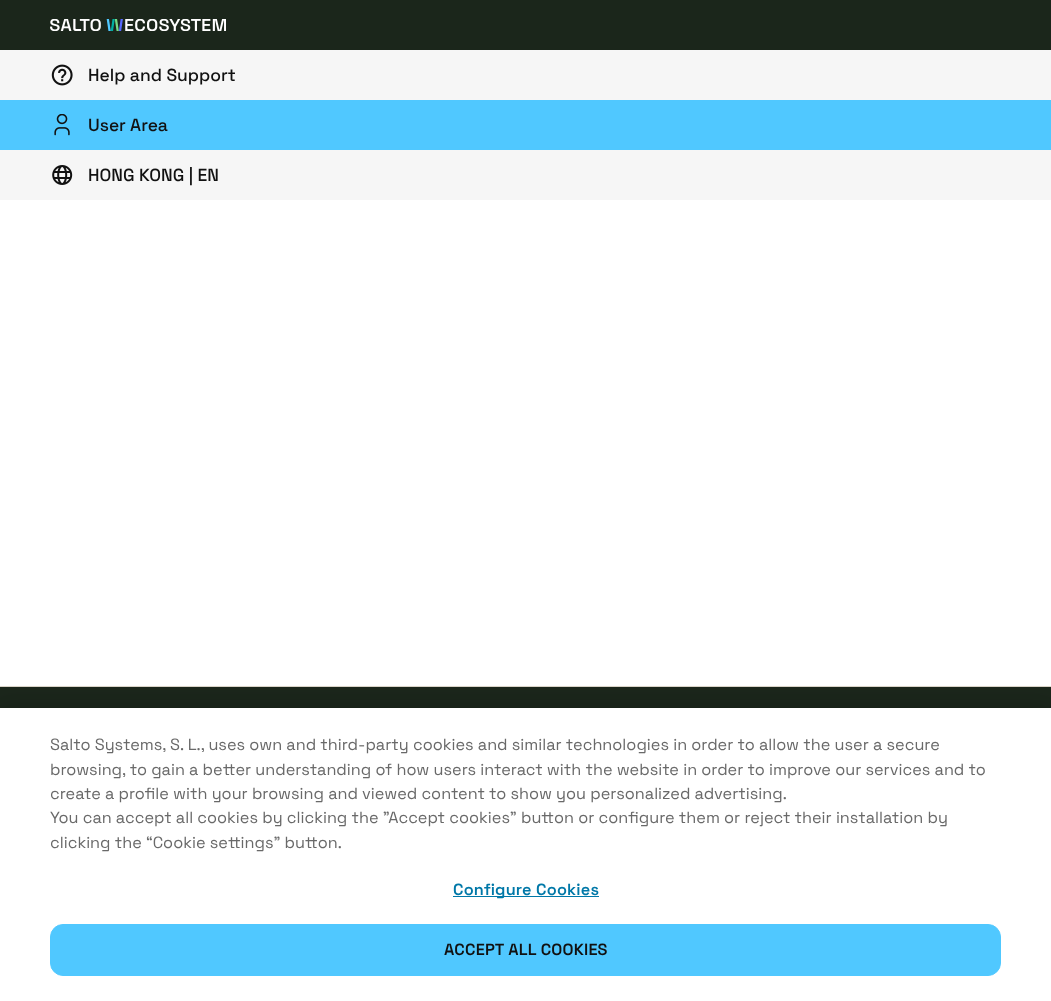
<svg xmlns="http://www.w3.org/2000/svg" width="1051" height="1001" viewBox="0 0 1051 1001">
  <defs>
    <filter id="blur1" x="-50%" y="-200%" width="200%" height="500%"><feGaussianBlur stdDeviation="11"/></filter>
  </defs>
  <rect width="100%" height="100%" fill="#ffffff"/>
  <rect x="0" y="0" width="1051" height="50" fill="#1b261b"/>
  <image x="50" y="19" width="176" height="12" href="img1.png"/>
  <rect x="0" y="50" width="1051" height="50" fill="#f6f6f6"/>
  <image x="51" y="64" width="22" height="22" href="img2.png"/>
  <text x="88" y="81" font-family="Space Grotesk" font-size="17.5" font-weight="500" fill="#111111">Help and Support</text>
  <rect x="0" y="100" width="1051" height="50" fill="#50c8ff"/>
  <image x="54" y="114" width="16" height="22" href="img3.png"/>
  <text x="88" y="131" font-family="Space Grotesk" font-size="17.5" font-weight="500" fill="#111111">User Area</text>
  <rect x="0" y="150" width="1051" height="50" fill="#f6f6f6"/>
  <image x="52" y="165" width="21" height="20" href="img4.png"/>
  <text x="88" y="181" font-family="Space Grotesk" font-size="17.5" font-weight="500" fill="#111111">HONG KONG | EN</text>
  <rect x="0" y="687" width="1051" height="21" fill="#1b261b"/>
  <rect x="0" y="686" width="1051" height="1" fill="#dbd5c9"/>
  <rect x="0" y="708" width="1051" height="293" fill="#000000" fill-opacity="0.2" filter="url(#blur1)"/>
  <rect x="0" y="708" width="1051" height="293" fill="#ffffff"/>
  <text x="50" y="750" font-family="Space Grotesk" font-size="16.25" fill="#696969">Salto Systems, S. L., uses own and third-party cookies and similar technologies in order to allow the user a secure</text>
  <text x="50" y="775" font-family="Space Grotesk" font-size="16.25" fill="#696969">browsing, to gain a better understanding of how users interact with the website in order to improve our services and to</text>
  <text x="50" y="799" font-family="Space Grotesk" font-size="16.25" fill="#696969">create a profile with your browsing and viewed content to show you personalized advertising.</text>
  <text x="50" y="823" font-family="Space Grotesk" font-size="16.25" fill="#696969">You can accept all cookies by clicking the "Accept cookies" button or configure them or reject their installation by</text>
  <text x="50" y="848" font-family="Space Grotesk" font-size="16.25" fill="#696969">clicking the “Cookie settings” button.</text>
  <rect x="453" y="896" width="146" height="1" fill="#0078a8"/>
  <text x="453" y="895" font-family="Space Grotesk" font-size="16.25" font-weight="600" letter-spacing="0.2" fill="#0078a8">Configure Cookies</text>
  <rect x="50.5" y="924.5" width="950" height="51" rx="12.5" fill="#50c8ff" stroke="#50c8ff"/>
  <text x="444" y="955" font-family="Space Grotesk" font-size="16.25" font-weight="600" letter-spacing="0.2" fill="#111111">ACCEPT ALL COOKIES</text>
</svg>
